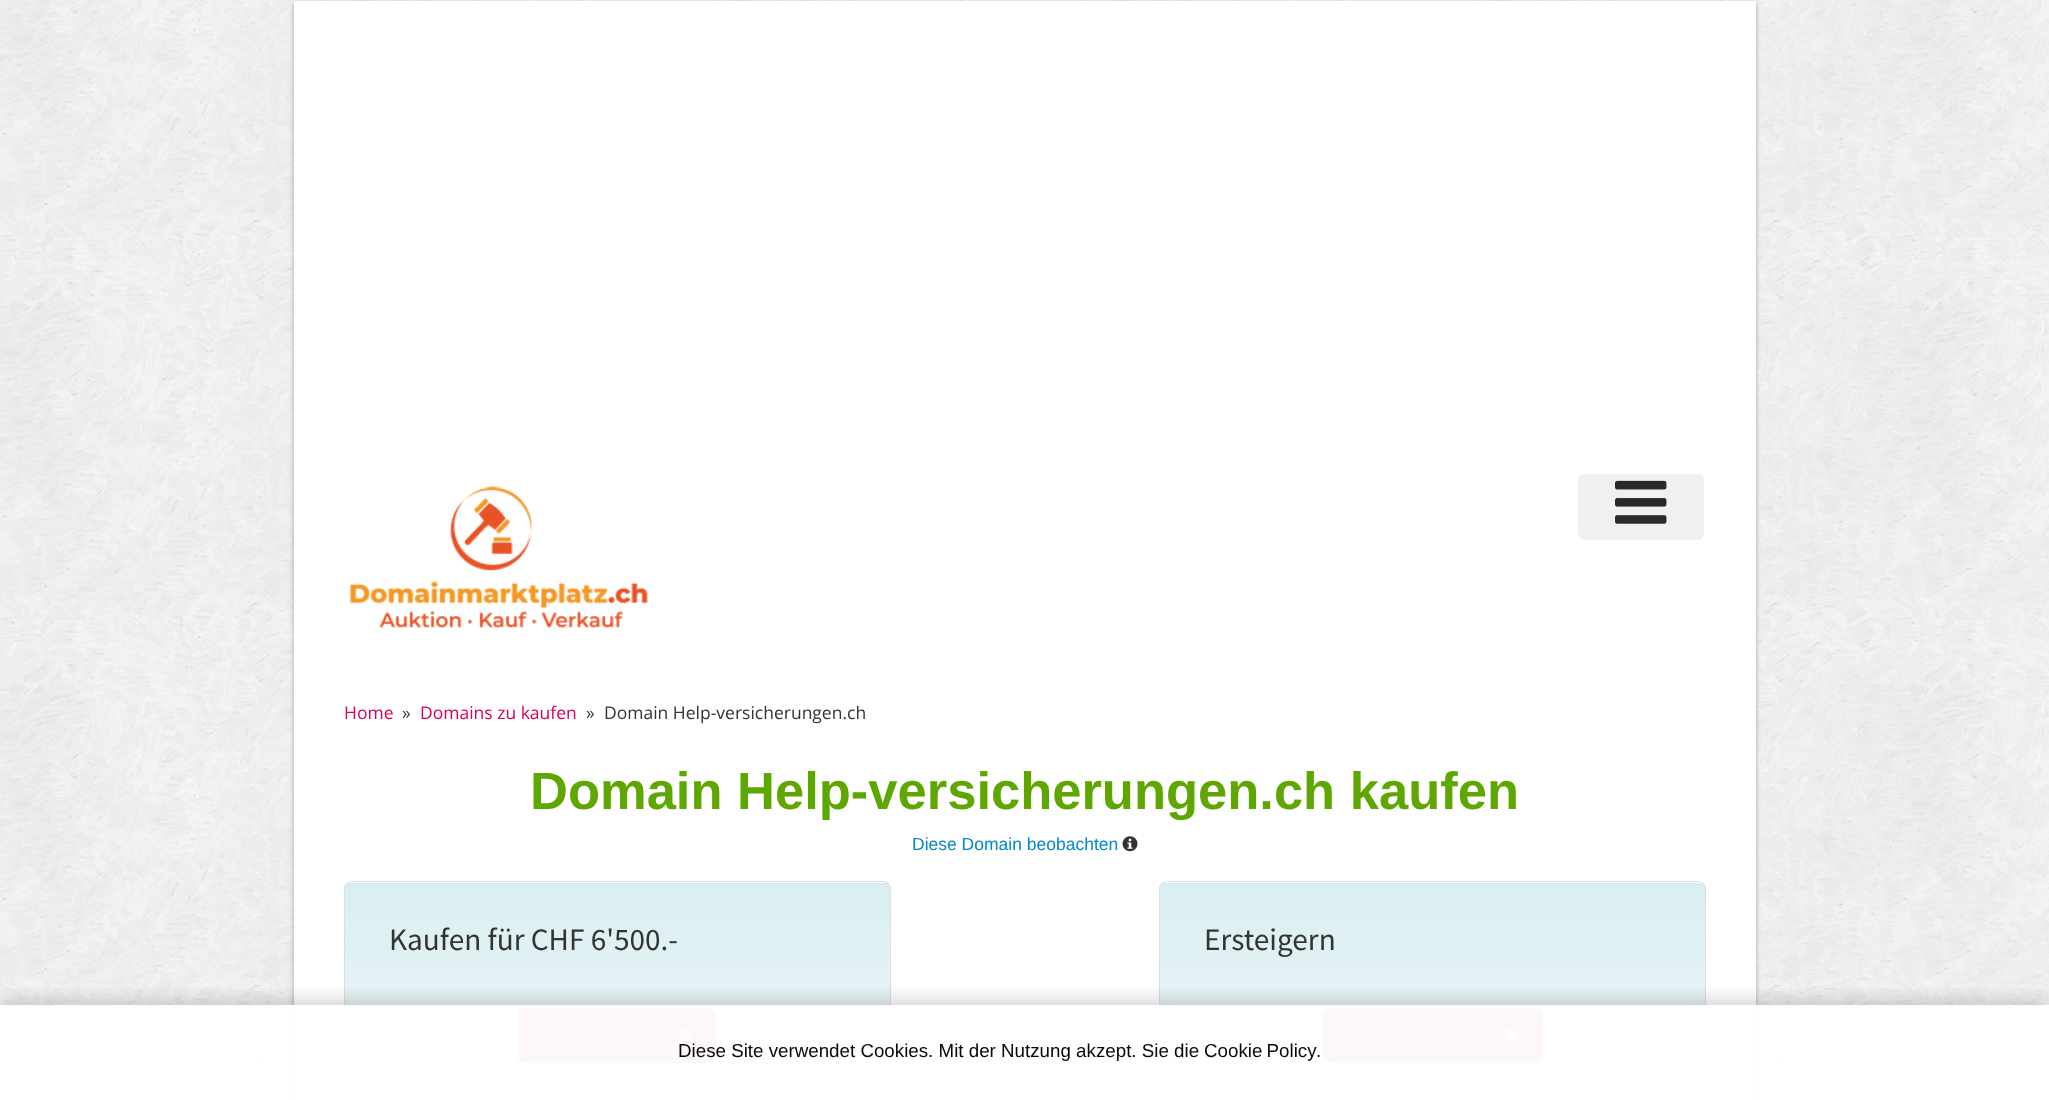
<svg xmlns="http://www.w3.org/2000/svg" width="2049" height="1100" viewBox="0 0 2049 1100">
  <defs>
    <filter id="blur1" x="-50%" y="-200%" width="200%" height="500%"><feGaussianBlur stdDeviation="2.5"/></filter>
    <clipPath id="clip1"><rect x="344" y="881" width="547" height="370" rx="8"/></clipPath>
    <linearGradient id="g1" gradientUnits="userSpaceOnUse" x1="618" y1="883" x2="618" y2="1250"><stop offset="0" stop-color="#d9eef1"/><stop offset="1" stop-color="#fefefe"/></linearGradient>
    <filter id="blur2" x="-50%" y="-200%" width="200%" height="500%"><feGaussianBlur stdDeviation="1"/></filter>
    <clipPath id="clip2"><rect x="518" y="1008" width="198" height="55" rx="8"/></clipPath>
    <linearGradient id="g2" gradientUnits="userSpaceOnUse" x1="617" y1="1009" x2="617" y2="1061"><stop offset="0" stop-color="#e2005a"/><stop offset="1" stop-color="#bc004b"/></linearGradient>
    <clipPath id="clip3"><rect x="1159" y="881" width="547" height="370" rx="8"/></clipPath>
    <linearGradient id="g3" gradientUnits="userSpaceOnUse" x1="1433" y1="883" x2="1433" y2="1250"><stop offset="0" stop-color="#d9eef1"/><stop offset="1" stop-color="#fefefe"/></linearGradient>
    <clipPath id="clip4"><rect x="1323" y="1008" width="220" height="55" rx="8"/></clipPath>
    <linearGradient id="g4" gradientUnits="userSpaceOnUse" x1="1433" y1="1009" x2="1433" y2="1061"><stop offset="0" stop-color="#e2005a"/><stop offset="1" stop-color="#bc004b"/></linearGradient>
    <clipPath id="clip5"><rect x="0" y="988" width="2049" height="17"/></clipPath>
    <filter id="blur3" x="-50%" y="-200%" width="200%" height="500%"><feGaussianBlur stdDeviation="9.5"/></filter>
  </defs>
  <rect width="100%" height="100%" fill="#ffffff"/>
  <image x="0" y="0" width="2049" height="1100" href="img1.png"/>
  <rect x="294" y="3" width="1462" height="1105" fill="#000000" fill-opacity="0.3" filter="url(#blur1)"/>
  <rect x="294" y="1" width="1462" height="1099" fill="#ffffff"/>
  <image x="349" y="486" width="299" height="142" href="img2.png"/>
  <rect x="1578" y="474" width="126" height="66" rx="6" fill="#f0f0f0"/>
  <image x="1615" y="480" width="52" height="44" href="img3.png"/>
  <text x="344" y="719" font-family="Open Sans" font-size="17.5" fill="#d80056">Home</text>
  <text x="402" y="719" font-family="Open Sans" font-size="17.5" fill="#333333">»</text>
  <text x="420" y="719" font-family="Open Sans" font-size="17.5" fill="#d80056">Domains zu kaufen</text>
  <text x="586" y="719" font-family="Open Sans" font-size="17.5" fill="#333333">»</text>
  <text x="604" y="719" font-family="Open Sans" font-size="17.5" fill="#333333">Domain Help-versicherungen.ch</text>
  <text x="530" y="809" font-family="Liberation Sans" font-size="52.5" font-weight="bold" fill="#5ea600">Domain Help-versicherungen.ch kaufen</text>
  <text x="912" y="850" font-family="Liberation Sans" font-size="17.5" fill="#0088cc">Diese Domain beobachten</text>
  <image x="1122" y="836" width="16" height="16" href="img4.png"/>
  <g clip-path="url(#clip1)">
    <rect x="344" y="883" width="547" height="217" fill="url(#g1)"/>
  </g>
  <rect x="344.5" y="881.5" width="546" height="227" rx="7.5" fill="none" stroke="#dddee0"/>
  <text x="389" y="950" font-family="Source Sans Pro" font-size="31.25" fill="#333333">Kaufen für CHF 6'500.-</text>
  <rect x="518" y="1009" width="198" height="55" rx="8" fill="#000000" fill-opacity="0.05" filter="url(#blur2)"/>
  <rect x="518" y="1008" width="198" height="55" rx="8" fill="#b40249"/>
  <g clip-path="url(#clip2)">
    <rect x="518" y="1009" width="198" height="52" fill="url(#g2)"/>
  </g>
  <path d="M525 1010H709C712 1010 715 1013 715 1016C715 1013 714 1010 710 1009H525C521 1009 519 1012 519 1016C519 1013 522 1010 525 1010Z" fill="#e8337b"/>
  <path d="M713.5 1060C712.5 1061 710.5 1062 709 1062H525C523 1062 521.5 1061 520 1060" fill="none" stroke="#000000" stroke-opacity="0.25" stroke-width="1.2"/>
  <path d="M520 1060C517 1057 518 1052 518 1048.5V1041.5C518 1001.5 512 1008 555.5 1008H678C722 1008 715.5 1001.5 715.5 1041.5V1048.5C715.5 1052 716.5 1057 713.5 1060" fill="none" stroke="#000000" stroke-opacity="0.1" stroke-width="1.2"/>
  <image x="679" y="1029" width="12" height="13" href="img5.png"/>
  <g clip-path="url(#clip3)">
    <rect x="1159" y="883" width="547" height="217" fill="url(#g3)"/>
  </g>
  <rect x="1159.5" y="881.5" width="546" height="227" rx="7.5" fill="none" stroke="#dddee0"/>
  <text x="1204" y="950" font-family="Source Sans Pro" font-size="31.25" fill="#333333">Ersteigern</text>
  <rect x="1323" y="1009" width="220" height="55" rx="8" fill="#000000" fill-opacity="0.05" filter="url(#blur2)"/>
  <rect x="1323" y="1008" width="220" height="55" rx="8" fill="#b40249"/>
  <g clip-path="url(#clip4)">
    <rect x="1323" y="1009" width="220" height="52" fill="url(#g4)"/>
  </g>
  <path d="M1330 1010H1535C1538 1010 1541 1013 1541 1016V1015C1541 1012 1538 1009 1535 1009H1330C1327 1009 1324 1012 1324 1015V1016C1324 1013 1327 1010 1330 1010Z" fill="#e8337b"/>
  <path d="M1540 1060C1538.5 1061 1537 1062 1535 1062H1330C1328 1062 1326.5 1061 1325 1060" fill="none" stroke="#000000" stroke-opacity="0.25" stroke-width="1.2"/>
  <path d="M1325 1060C1322 1057 1323 1052 1323 1048.5V1041.5C1323 1000 1317.5 1008 1364 1008H1501C1547.5 1008 1542 1000 1542 1041.5V1048.5C1542 1052 1543 1057 1540 1060" fill="none" stroke="#000000" stroke-opacity="0.1" stroke-width="1.2"/>
  <image x="1505" y="1029" width="12" height="13" href="img6.png"/>
  <g clip-path="url(#clip5)">
    <rect x="1" y="1000" width="2048" height="93" fill="#000000" fill-opacity="0.18" filter="url(#blur3)"/>
  </g>
  <rect x="0" y="1005" width="2049" height="95" fill="#ffffff" fill-opacity="0.97"/>
  <text x="678" y="1057" font-family="Liberation Sans" font-size="18.75" fill="#080808">Diese Site verwendet Cookies. Mit der Nutzung akzept. Sie die</text>
  <text x="1204" y="1057" word-spacing="-1" font-family="Liberation Sans" font-size="18.75" fill="#080808">Cookie Policy</text>
  <text x="1316" y="1057" font-family="Liberation Sans" font-size="18.75" fill="#080808">.</text>
</svg>
